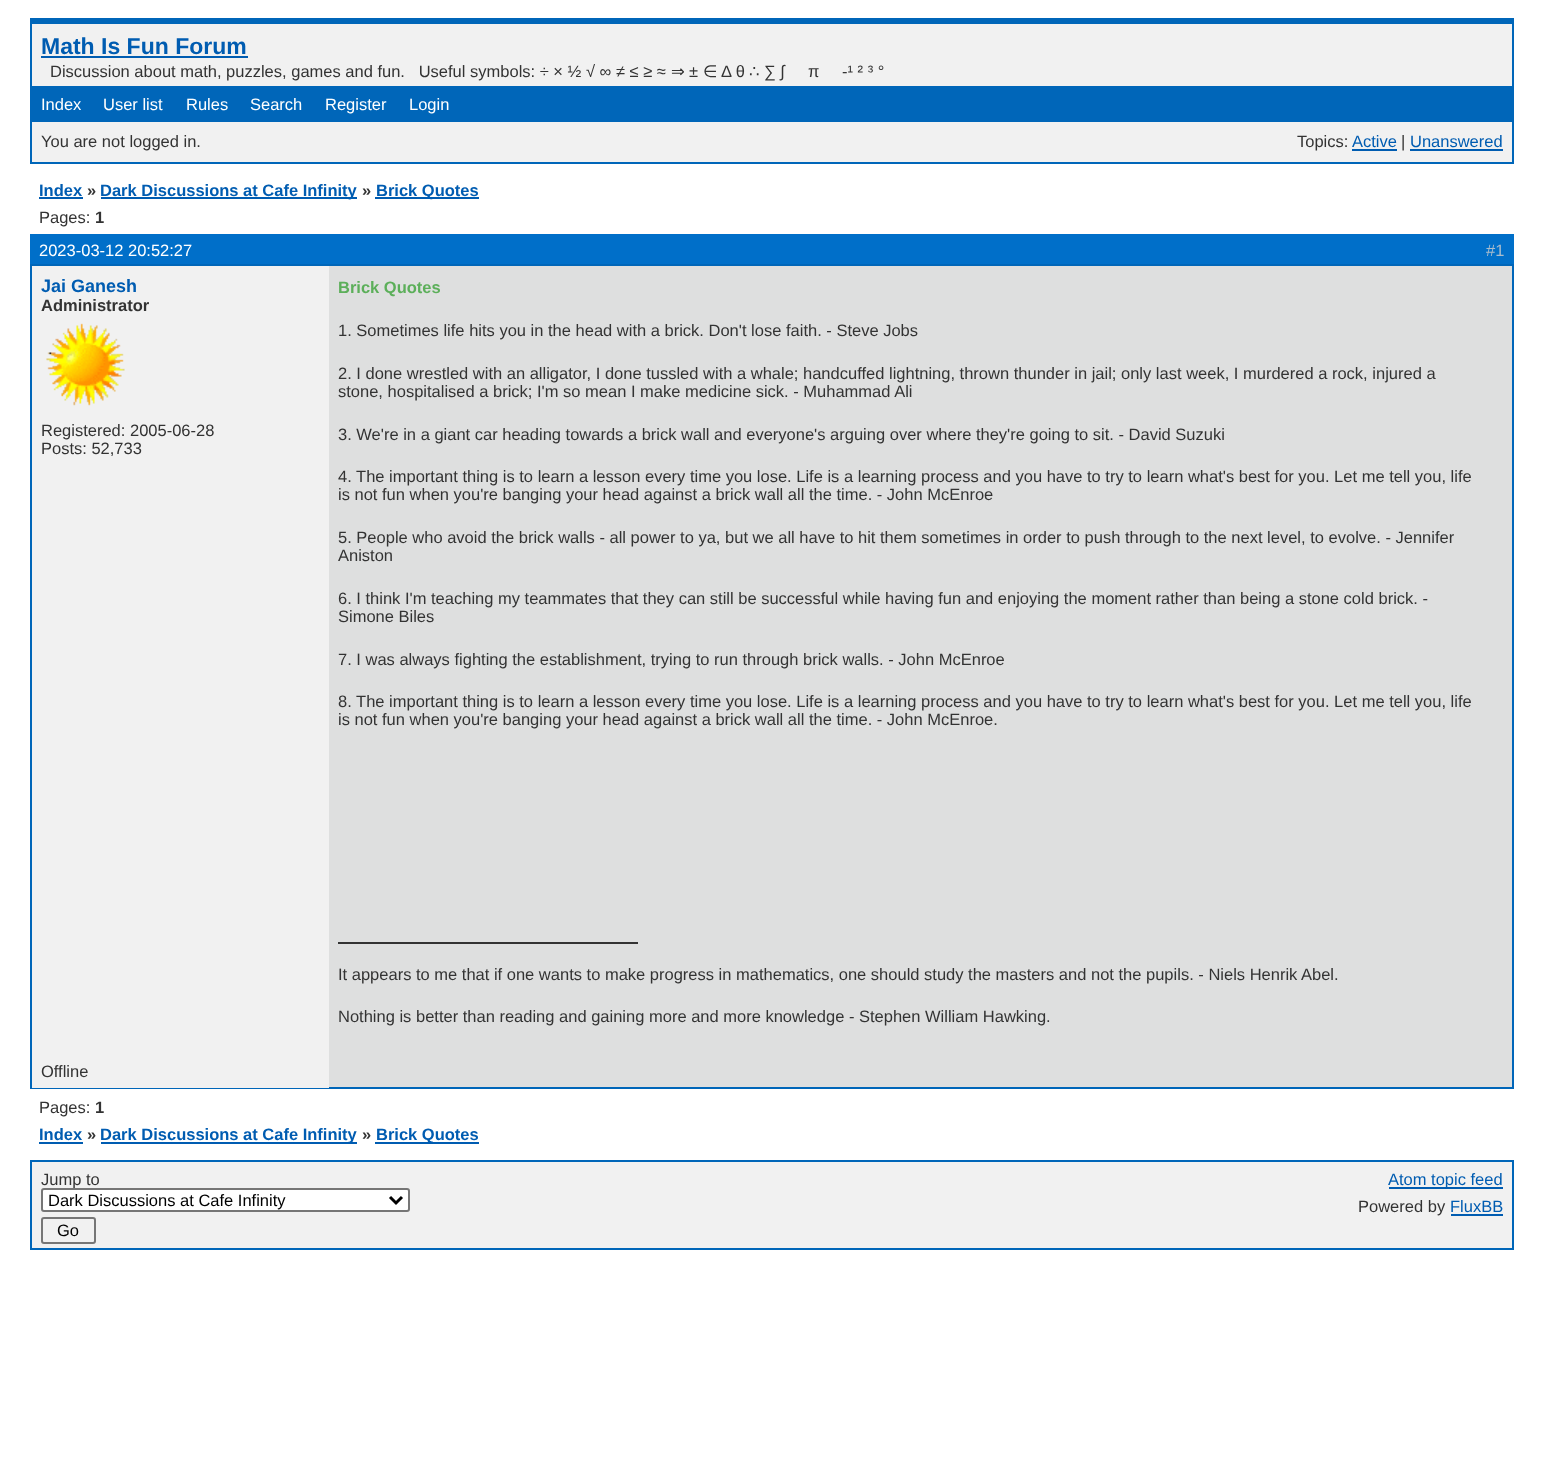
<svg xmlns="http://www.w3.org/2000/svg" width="1543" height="1475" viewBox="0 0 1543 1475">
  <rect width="100%" height="100%" fill="#ffffff"/>
  <rect x="32" y="24" width="1480" height="138" fill="#f1f1f1"/>
  <rect x="30" y="18" width="1484" height="6" fill="#0066b9"/>
  <rect x="1512" y="18" width="2" height="146" fill="#0066b9"/>
  <rect x="30" y="162" width="1484" height="2" fill="#0066b9"/>
  <rect x="30" y="18" width="2" height="146" fill="#0066b9"/>
  <text x="41" y="54" font-family="Liberation Sans" font-size="23" font-weight="bold" fill="#005cb1">Math Is Fun Forum</text>
  <rect x="41" y="56" width="207" height="2" fill="#005cb1"/>
  <text x="50" y="77" font-family="Liberation Sans" font-size="16.5" fill="#333333" xml:space="preserve">Discussion about math, puzzles, games and fun.   Useful symbols: ÷ × ½ √ ∞ ≠ ≤ ≥ ≈</text>
  <text x="671" y="77" font-family="DejaVu Sans" font-size="16.5" fill="#333333">⇒</text>
  <text x="689" y="77" font-family="Liberation Sans" font-size="16.5" fill="#333333">±</text>
  <text x="703" y="77" font-family="DejaVu Sans" font-size="16.5" fill="#333333">∈</text>
  <text x="721" y="77" font-family="Liberation Sans" font-size="16.5" fill="#333333">Δ θ</text>
  <text x="749" y="77" font-family="DejaVu Sans" font-size="16.5" fill="#333333">∴</text>
  <text x="764" y="77" font-family="Liberation Sans" font-size="16.5" fill="#333333">∑ ∫</text>
  <text x="808" y="77" font-family="Liberation Sans" font-size="16.5" fill="#333333">π</text>
  <text x="842" y="77" font-family="Liberation Sans" font-size="16.5" fill="#333333">-¹ ² ³ °</text>
  <rect x="32" y="86" width="1480" height="36" fill="#0066b9"/>
  <text x="41" y="110" font-family="Liberation Sans" font-size="16.5" fill="#ffffff">Index</text>
  <text x="103" y="110" font-family="Liberation Sans" font-size="16.5" fill="#ffffff">User list</text>
  <text x="186" y="110" font-family="Liberation Sans" font-size="16.5" fill="#ffffff">Rules</text>
  <text x="250" y="110" font-family="Liberation Sans" font-size="16.5" fill="#ffffff">Search</text>
  <text x="325" y="110" font-family="Liberation Sans" font-size="16.5" fill="#ffffff">Register</text>
  <text x="409" y="110" font-family="Liberation Sans" font-size="16.5" fill="#ffffff">Login</text>
  <text x="41" y="147" font-family="Liberation Sans" font-size="16.5" fill="#333333">You are not logged in.</text>
  <text x="1297" y="147" font-family="Liberation Sans" font-size="16.5" fill="#333333">Topics:</text>
  <text x="1352" y="147" font-family="Liberation Sans" font-size="16.5" fill="#005cb1">Active</text>
  <rect x="1352" y="149" width="45" height="2" fill="#005cb1"/>
  <text x="1401" y="147" font-family="Liberation Sans" font-size="16.5" fill="#333333">|</text>
  <text x="1410" y="147" font-family="Liberation Sans" font-size="16.5" fill="#005cb1">Unanswered</text>
  <rect x="1410" y="149" width="93" height="2" fill="#005cb1"/>
  <text x="39" y="196" font-family="Liberation Sans" font-size="16.5" font-weight="bold" fill="#005cb1">Index</text>
  <rect x="39" y="197" width="44" height="2" fill="#005cb1"/>
  <text x="87" y="196" font-family="Liberation Sans" font-size="16.5" font-weight="bold" fill="#333333">»</text>
  <rect x="101" y="197" width="256" height="2" fill="#005cb1"/>
  <text x="100" y="196" font-family="Liberation Sans" font-size="16.5" font-weight="bold" fill="#005cb1">Dark Discussions at Cafe Infinity</text>
  <text x="362" y="196" font-family="Liberation Sans" font-size="16.5" font-weight="bold" fill="#333333">»</text>
  <rect x="375" y="197" width="104" height="2" fill="#005cb1"/>
  <text x="376" y="196" font-family="Liberation Sans" font-size="16.5" font-weight="bold" fill="#005cb1">Brick Quotes</text>
  <text x="39" y="223" font-family="Liberation Sans" font-size="16.5" fill="#333333">Pages:</text>
  <text x="95" y="223" font-family="Liberation Sans" font-size="16.5" font-weight="bold" fill="#333333">1</text>
  <rect x="30" y="234" width="1484" height="30" fill="#006fc9"/>
  <text x="39" y="256" font-family="Liberation Sans" font-size="16.5" fill="#ffffff">2023-03-12 20:52:27</text>
  <text x="1486" y="256" font-family="Liberation Sans" font-size="16.5" fill="#aabdcd">#1</text>
  <rect x="329" y="266" width="1183" height="821" fill="#dedfdf"/>
  <rect x="31" y="265" width="1482" height="823" fill="none" stroke="#0066b9" stroke-width="2"/>
  <rect x="32" y="266" width="297" height="822" fill="#f1f1f1"/>
  <text x="41" y="292" font-family="Liberation Sans" font-size="18" font-weight="bold" fill="#005cb1">Jai Ganesh</text>
  <text x="41" y="311" font-family="Liberation Sans" font-size="16.5" font-weight="bold" fill="#333333">Administrator</text>
  <image x="46" y="323" width="79" height="83" href="img1.png"/>
  <text x="41" y="436" font-family="Liberation Sans" font-size="16.5" fill="#333333">Registered: 2005-06-28</text>
  <text x="41" y="454" font-family="Liberation Sans" font-size="16.5" fill="#333333">Posts: 52,733</text>
  <text x="338" y="293" font-family="Liberation Sans" font-size="16.5" font-weight="bold" fill="#5caf5a">Brick Quotes</text>
  <text x="338" y="336" font-family="Liberation Sans" font-size="16.5" fill="#333333">1. Sometimes life hits you in the head with a brick. Don't lose faith. - Steve Jobs</text>
  <text x="338" y="379" font-family="Liberation Sans" font-size="16.5" fill="#333333">2. I done wrestled with an alligator, I done tussled with a whale; handcuffed lightning, thrown thunder in jail; only last week, I murdered a rock, injured a</text>
  <text x="338" y="397" font-family="Liberation Sans" font-size="16.5" fill="#333333">stone, hospitalised a brick; I'm so mean I make medicine sick. - Muhammad Ali</text>
  <text x="338" y="440" font-family="Liberation Sans" font-size="16.5" fill="#333333">3. We're in a giant car heading towards a brick wall and everyone's arguing over where they're going to sit. - David Suzuki</text>
  <text x="338" y="482" font-family="Liberation Sans" font-size="16.5" fill="#333333">4. The important thing is to learn a lesson every time you lose. Life is a learning process and you have to try to learn what's best for you. Let me tell you, life</text>
  <text x="338" y="500" font-family="Liberation Sans" font-size="16.5" fill="#333333">is not fun when you're banging your head against a brick wall all the time. - John McEnroe</text>
  <text x="338" y="543" font-family="Liberation Sans" font-size="16.5" fill="#333333">5. People who avoid the brick walls - all power to ya, but we all have to hit them sometimes in order to push through to the next level, to evolve. - Jennifer</text>
  <text x="338" y="561" font-family="Liberation Sans" font-size="16.5" fill="#333333">Aniston</text>
  <text x="338" y="604" font-family="Liberation Sans" font-size="16.5" fill="#333333">6. I think I'm teaching my teammates that they can still be successful while having fun and enjoying the moment rather than being a stone cold brick. -</text>
  <text x="338" y="622" font-family="Liberation Sans" font-size="16.5" fill="#333333">Simone Biles</text>
  <text x="338" y="665" font-family="Liberation Sans" font-size="16.5" fill="#333333">7. I was always fighting the establishment, trying to run through brick walls. - John McEnroe</text>
  <text x="338" y="707" font-family="Liberation Sans" font-size="16.5" fill="#333333">8. The important thing is to learn a lesson every time you lose. Life is a learning process and you have to try to learn what's best for you. Let me tell you, life</text>
  <text x="338" y="725" font-family="Liberation Sans" font-size="16.5" fill="#333333">is not fun when you're banging your head against a brick wall all the time. - John McEnroe.</text>
  <rect x="338" y="942" width="300" height="2" fill="#333333"/>
  <text x="338" y="980" font-family="Liberation Sans" font-size="16.5" fill="#333333">It appears to me that if one wants to make progress in mathematics, one should study the masters and not the pupils. - Niels Henrik Abel.</text>
  <text x="338" y="1022" font-family="Liberation Sans" font-size="16.5" fill="#333333">Nothing is better than reading and gaining more and more knowledge - Stephen William Hawking.</text>
  <text x="41" y="1077" font-family="Liberation Sans" font-size="16.5" fill="#333333">Offline</text>
  <text x="39" y="1113" font-family="Liberation Sans" font-size="16.5" fill="#333333">Pages:</text>
  <text x="95" y="1113" font-family="Liberation Sans" font-size="16.5" font-weight="bold" fill="#333333">1</text>
  <text x="39" y="1140" font-family="Liberation Sans" font-size="16.5" font-weight="bold" fill="#005cb1">Index</text>
  <rect x="39" y="1142" width="44" height="2" fill="#005cb1"/>
  <text x="87" y="1140" font-family="Liberation Sans" font-size="16.5" font-weight="bold" fill="#333333">»</text>
  <rect x="101" y="1142" width="256" height="2" fill="#005cb1"/>
  <text x="100" y="1140" font-family="Liberation Sans" font-size="16.5" font-weight="bold" fill="#005cb1">Dark Discussions at Cafe Infinity</text>
  <text x="362" y="1140" font-family="Liberation Sans" font-size="16.5" font-weight="bold" fill="#333333">»</text>
  <rect x="375" y="1142" width="104" height="2" fill="#005cb1"/>
  <text x="376" y="1140" font-family="Liberation Sans" font-size="16.5" font-weight="bold" fill="#005cb1">Brick Quotes</text>
  <rect x="31" y="1161" width="1482" height="88" fill="#f1f1f1" stroke="#0066b9" stroke-width="2"/>
  <text x="41" y="1185" font-family="Liberation Sans" font-size="16.5" fill="#333333">Jump to</text>
  <rect x="42" y="1189" width="367" height="22" rx="2" fill="#ffffff" stroke="#767676" stroke-width="2"/>
  <path d="M390 1197L396 1203L402 1197" fill="none" stroke="#000000" stroke-width="3"/>
  <text x="48" y="1206" font-family="Liberation Sans" font-size="16.5" fill="#000000">Dark Discussions at Cafe Infinity</text>
  <rect x="42" y="1218" width="53" height="25" rx="2" fill="none" stroke="#767676" stroke-width="2"/>
  <text x="57" y="1236" font-family="Liberation Sans" font-size="16.5" fill="#000000">Go</text>
  <rect x="1389" y="1187" width="114" height="2" fill="#005cb1"/>
  <text x="1388" y="1185" font-family="Liberation Sans" font-size="16.5" fill="#005cb1">Atom topic feed</text>
  <text x="1358" y="1212" font-family="Liberation Sans" font-size="16.5" fill="#333333">Powered by</text>
  <text x="1450" y="1212" font-family="Liberation Sans" font-size="16.5" fill="#005cb1">FluxBB</text>
  <rect x="1451" y="1214" width="52" height="2" fill="#005cb1"/>
</svg>
